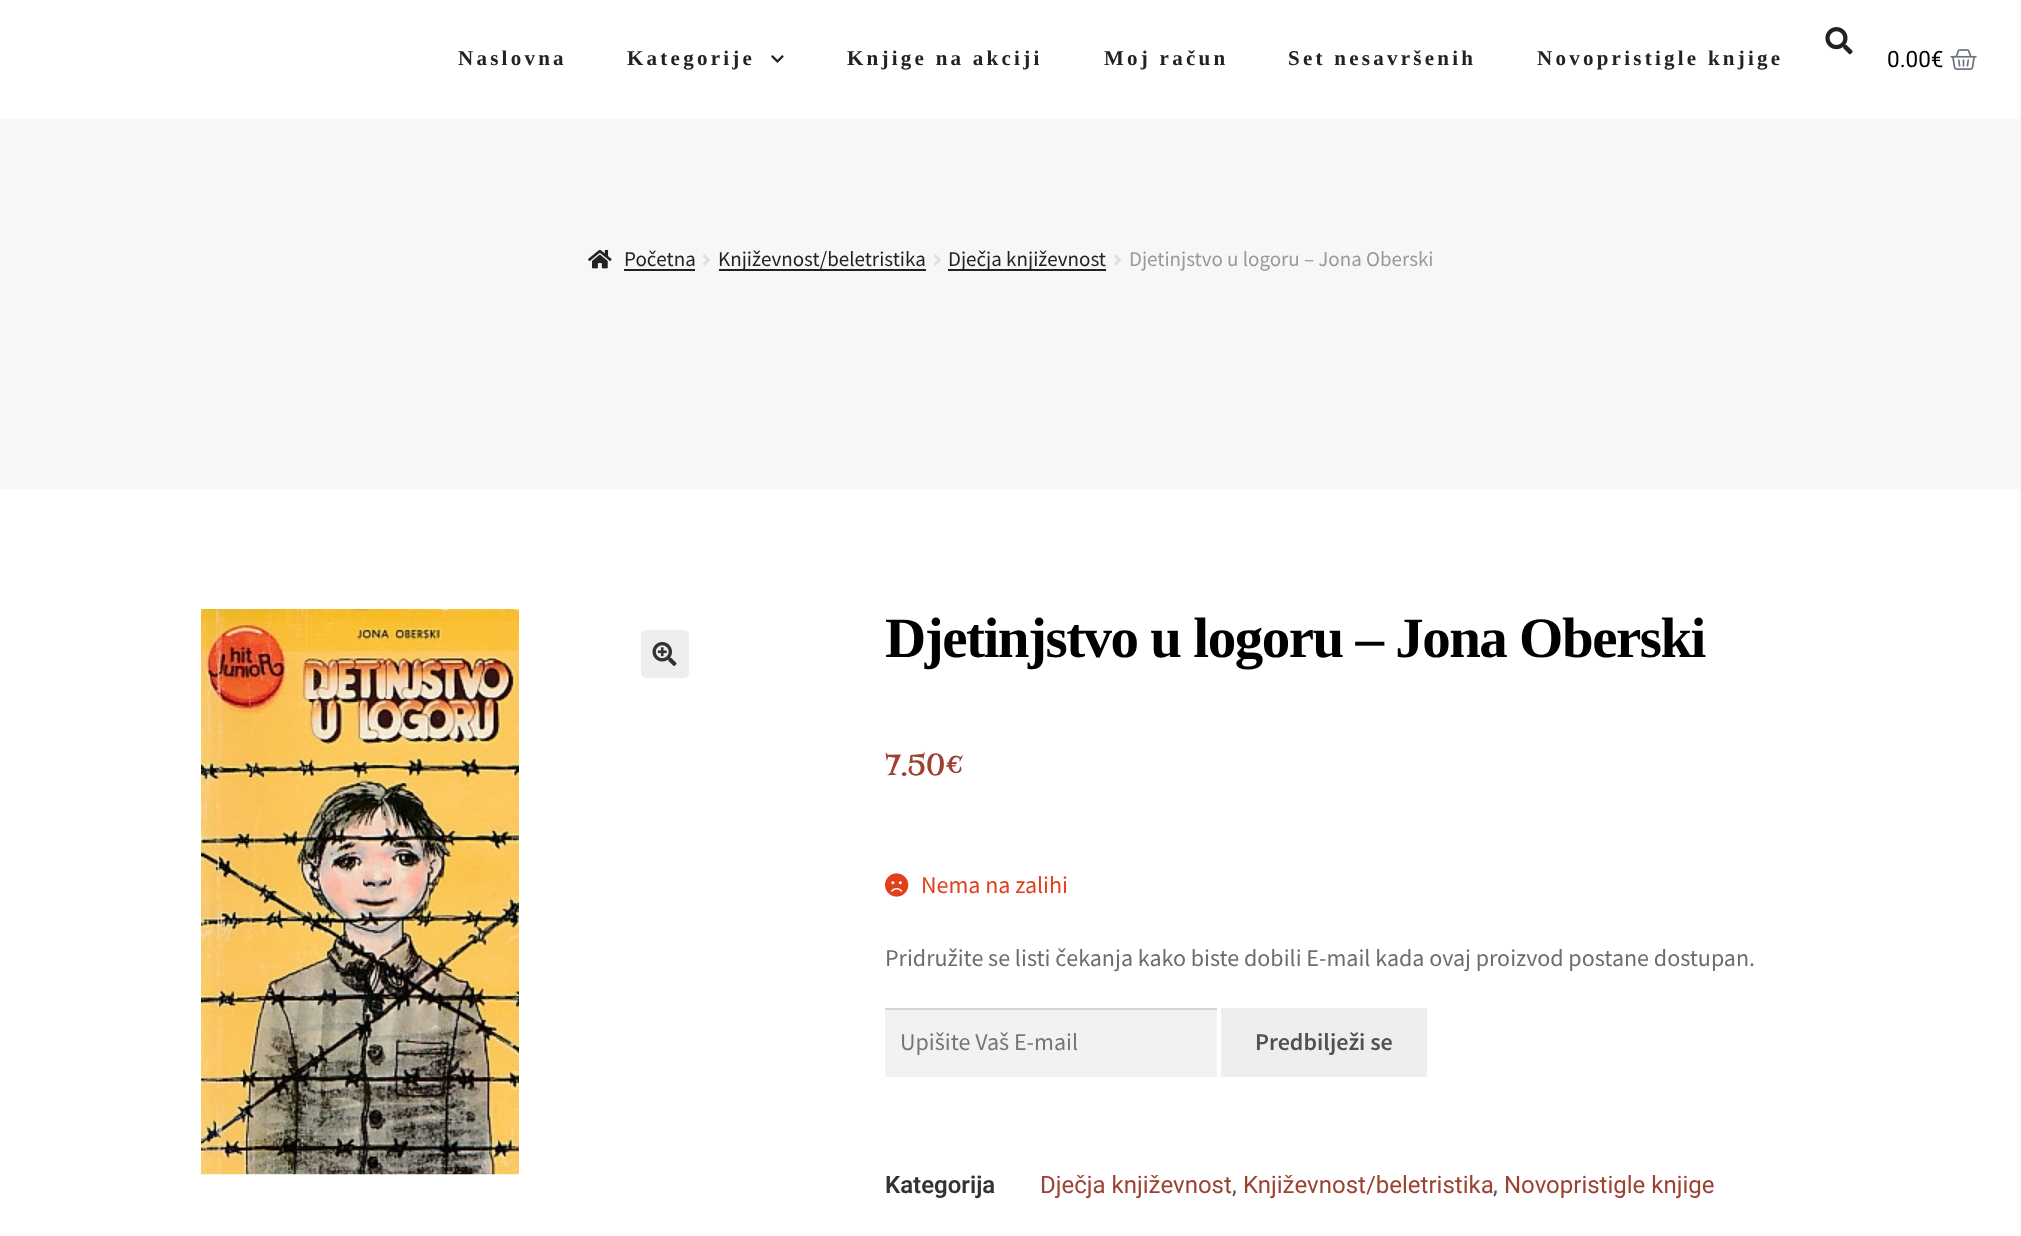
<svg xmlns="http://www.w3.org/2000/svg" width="2021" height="1236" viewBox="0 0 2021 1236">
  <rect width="100%" height="100%" fill="#ffffff"/>
  <image x="1825" y="27" width="28" height="28" href="img1.png"/>
  <text x="458" y="65" font-family="Liberation Serif" font-size="21" font-weight="bold" letter-spacing="3.25" fill="#222222">Naslovna</text>
  <text x="627" y="65" font-family="Liberation Serif" font-size="21" font-weight="bold" letter-spacing="3.25" fill="#222222">Kategorije</text>
  <image x="771" y="55" width="13" height="8" href="img2.png"/>
  <text x="847" y="65" font-family="Liberation Serif" font-size="21" font-weight="bold" letter-spacing="3.25" fill="#222222">Knjige na akciji</text>
  <text x="1104" y="65" font-family="Liberation Serif" font-size="21" font-weight="bold" letter-spacing="3.25" fill="#222222">Moj račun</text>
  <text x="1288" y="65" font-family="Liberation Serif" font-size="21" font-weight="bold" letter-spacing="3.25" fill="#222222">Set nesavršenih</text>
  <text x="1537" y="65" font-family="Liberation Serif" font-size="21" font-weight="bold" letter-spacing="3.25" fill="#222222">Novopristigle knjige</text>
  <text x="1887" y="67" font-family="Roboto" font-size="22.5" fill="#000000">0.00€</text>
  <image x="1950" y="49" width="27" height="21" href="img3.png"/>
  <rect x="0" y="119" width="2021" height="370" fill="#f9f7f5"/>
  <image x="588" y="249" width="24" height="20" href="img4.png"/>
  <text x="624" y="266" font-family="Source Sans Pro" font-size="21" fill="#222222">Početna</text>
  <rect x="624" y="269" width="71" height="2" fill="#222222"/>
  <image x="703" y="254" width="7" height="12" href="img5.png"/>
  <rect x="719" y="269" width="207" height="2" fill="#222222"/>
  <text x="718" y="266" font-family="Source Sans Pro" font-size="21" fill="#222222">Književnost/beletristika</text>
  <image x="934" y="254" width="7" height="12" href="img5.png"/>
  <rect x="948" y="269" width="158" height="2" fill="#222222"/>
  <text x="948" y="266" font-family="Source Sans Pro" font-size="21" fill="#222222">Dječja književnost</text>
  <image x="1114" y="254" width="7" height="12" href="img5.png"/>
  <text x="1129" y="266" font-family="Source Sans Pro" font-size="21" fill="#999999">Djetinjstvo u logoru – Jona Oberski</text>
  <image x="201" y="609" width="318" height="566" href="img6.png"/>
  <rect x="641" y="630" width="48" height="48" rx="5" fill="#eeeeee"/>
  <image x="652" y="642" width="25" height="24" href="img7.png"/>
  <text x="885" y="657" font-family="Liberation Serif" font-size="57" font-weight="bold" letter-spacing="-1.5" fill="#000000">Djetinjstvo u logoru – Jona Oberski</text>
  <text x="885" y="775" font-family="Risque" font-size="31.5" fill="#9b4232">7.50€</text>
  <image x="885" y="873" width="24" height="24" href="img8.png"/>
  <text x="921" y="893" font-family="Source Sans Pro" font-size="24" fill="#e2401c">Nema na zalihi</text>
  <text x="885" y="966" font-family="Source Sans Pro" font-size="24" fill="#6d6d6d">Pridružite se listi čekanja kako biste dobili E-mail kada ovaj proizvod postane dostupan.</text>
  <rect x="885" y="1010" width="332" height="67" fill="#f2f2f2"/>
  <rect x="885" y="1008" width="332" height="2" fill="#d4d4d4"/>
  <text x="900" y="1050" font-family="Source Sans Pro" font-size="24" fill="#757575">Upišite Vaš E-mail</text>
  <rect x="1221" y="1008" width="206" height="69" fill="#eeeeee"/>
  <text x="1255" y="1050" font-family="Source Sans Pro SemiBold" font-size="24" font-weight="600" fill="#515151">Predbilježi se</text>
  <text x="885" y="1193" font-family="Roboto" font-size="24" font-weight="600" fill="#333333">Kategorija</text>
  <text x="1040" y="1193" font-family="Roboto" font-size="24" fill="#9b4232">Dječja književnost</text>
  <text x="1232" y="1193" font-family="Roboto" font-size="24" fill="#515151">,</text>
  <text x="1243" y="1193" font-family="Roboto" font-size="24" fill="#9b4232">Književnost/beletristika</text>
  <text x="1493" y="1193" font-family="Roboto" font-size="24" fill="#515151">,</text>
  <text x="1504" y="1193" font-family="Roboto" font-size="24" fill="#9b4232">Novopristigle knjige</text>
</svg>
